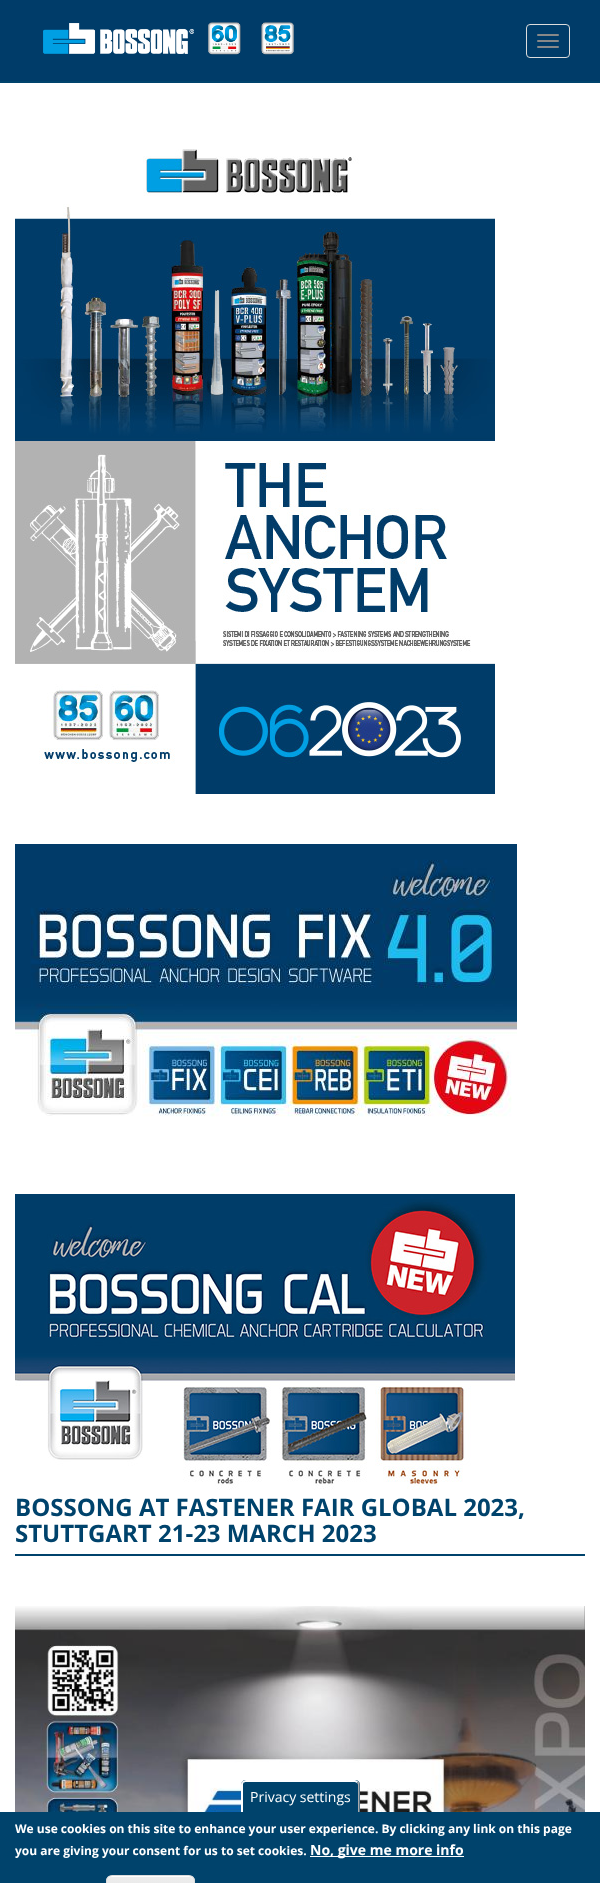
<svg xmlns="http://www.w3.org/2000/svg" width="600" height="1883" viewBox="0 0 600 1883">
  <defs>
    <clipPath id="clip1"><rect x="106" y="1875" width="89" height="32" rx="6"/></clipPath>
    <linearGradient id="g1" gradientUnits="userSpaceOnUse" x1="151" y1="1876" x2="151" y2="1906"><stop offset="0.05" stop-color="#ededed"/><stop offset="1" stop-color="#dfdfdf"/></linearGradient>
  </defs>
  <rect width="100%" height="100%" fill="#ffffff"/>
  <rect x="0" y="0" width="600" height="81" fill="#003c69"/>
  <rect x="0" y="81" width="600" height="2" fill="#00436c"/>
  <image x="43" y="22" width="251" height="33" href="img1.png"/>
  <rect x="526.5" y="24.5" width="43" height="33" rx="3.5" fill="none" stroke="#dddddd"/>
  <rect x="537" y="34" width="22" height="2" rx="1" fill="#888888"/>
  <rect x="537" y="40" width="22" height="2" rx="1" fill="#888888"/>
  <rect x="537" y="46" width="22" height="2" rx="1" fill="#888888"/>
  <image x="15" y="149" width="480" height="645" href="img2.png"/>
  <image x="15" y="844" width="502" height="273" href="img3.png"/>
  <image x="15" y="1194" width="500" height="296" href="img4.png"/>
  <text x="15" y="1516" font-family="Open Sans" font-size="24" font-weight="bold" fill="#00436c">BOSSONG AT FASTENER FAIR GLOBAL 2023,</text>
  <text x="15" y="1542" font-family="Open Sans" font-size="24" font-weight="bold" fill="#00436c">STUTTGART 21-23 MARCH 2023</text>
  <rect x="15" y="1554" width="570" height="2" fill="#00436c"/>
  <image x="15" y="1606" width="570" height="206" href="img5.png"/>
  <rect x="0" y="1812" width="600" height="71" fill="#00436c"/>
  <path d="M246 1780H355C358 1780 360 1782 360 1785V1812H241V1785C241 1782 243 1780 246 1780Z" fill="#00436c"/>
  <path d="M246 1780H355L358 1781L357 1783L355 1782H246C245 1782 244 1782 244 1783L242 1782C243 1781 244 1780 246 1780Z" fill="#ffffff"/>
  <path d="M357 1783L358.5 1781.5L359.5 1783.5V1812H358V1785C358 1784 357.5 1783.5 357 1783Z" fill="#aaaaaa"/>
  <path d="M241 1812H243V1785C243 1784 243 1783.5 243.5 1783L242 1781.5C241.5 1782.5 241 1783.5 241 1785Z" fill="#ffffff"/>
  <text x="250" y="1802" font-family="Open Sans" font-size="14" fill="#ffffff">Privacy settings</text>
  <text x="15" y="1833" font-family="Open Sans" font-size="12" font-weight="bold" fill="#ffffff">We use cookies on this site to enhance your user experience. By clicking any link on this page</text>
  <text x="15" y="1855" font-family="Open Sans" font-size="12" font-weight="bold" fill="#ffffff">you are giving your consent for us to set cookies.</text>
  <rect x="310" y="1856" width="154" height="1" fill="#ffffff"/>
  <text x="310" y="1855" font-family="Open Sans" font-size="14" font-weight="bold" fill="#ffffff">No, give me more info</text>
  <g clip-path="url(#clip1)">
    <rect x="106" y="1876" width="89" height="7" fill="url(#g1)"/>
  </g>
  <path d="M112 1877H189C192 1877 194 1879 194 1882C194 1873 182 1876 176 1876H125C119 1876 107 1873 107 1882C107 1879 109 1877 112 1877Z" fill="#ffffff"/>
  <rect x="106.5" y="1875.5" width="88" height="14" rx="5.5" fill="none" stroke="#dcdcdc"/>
</svg>
